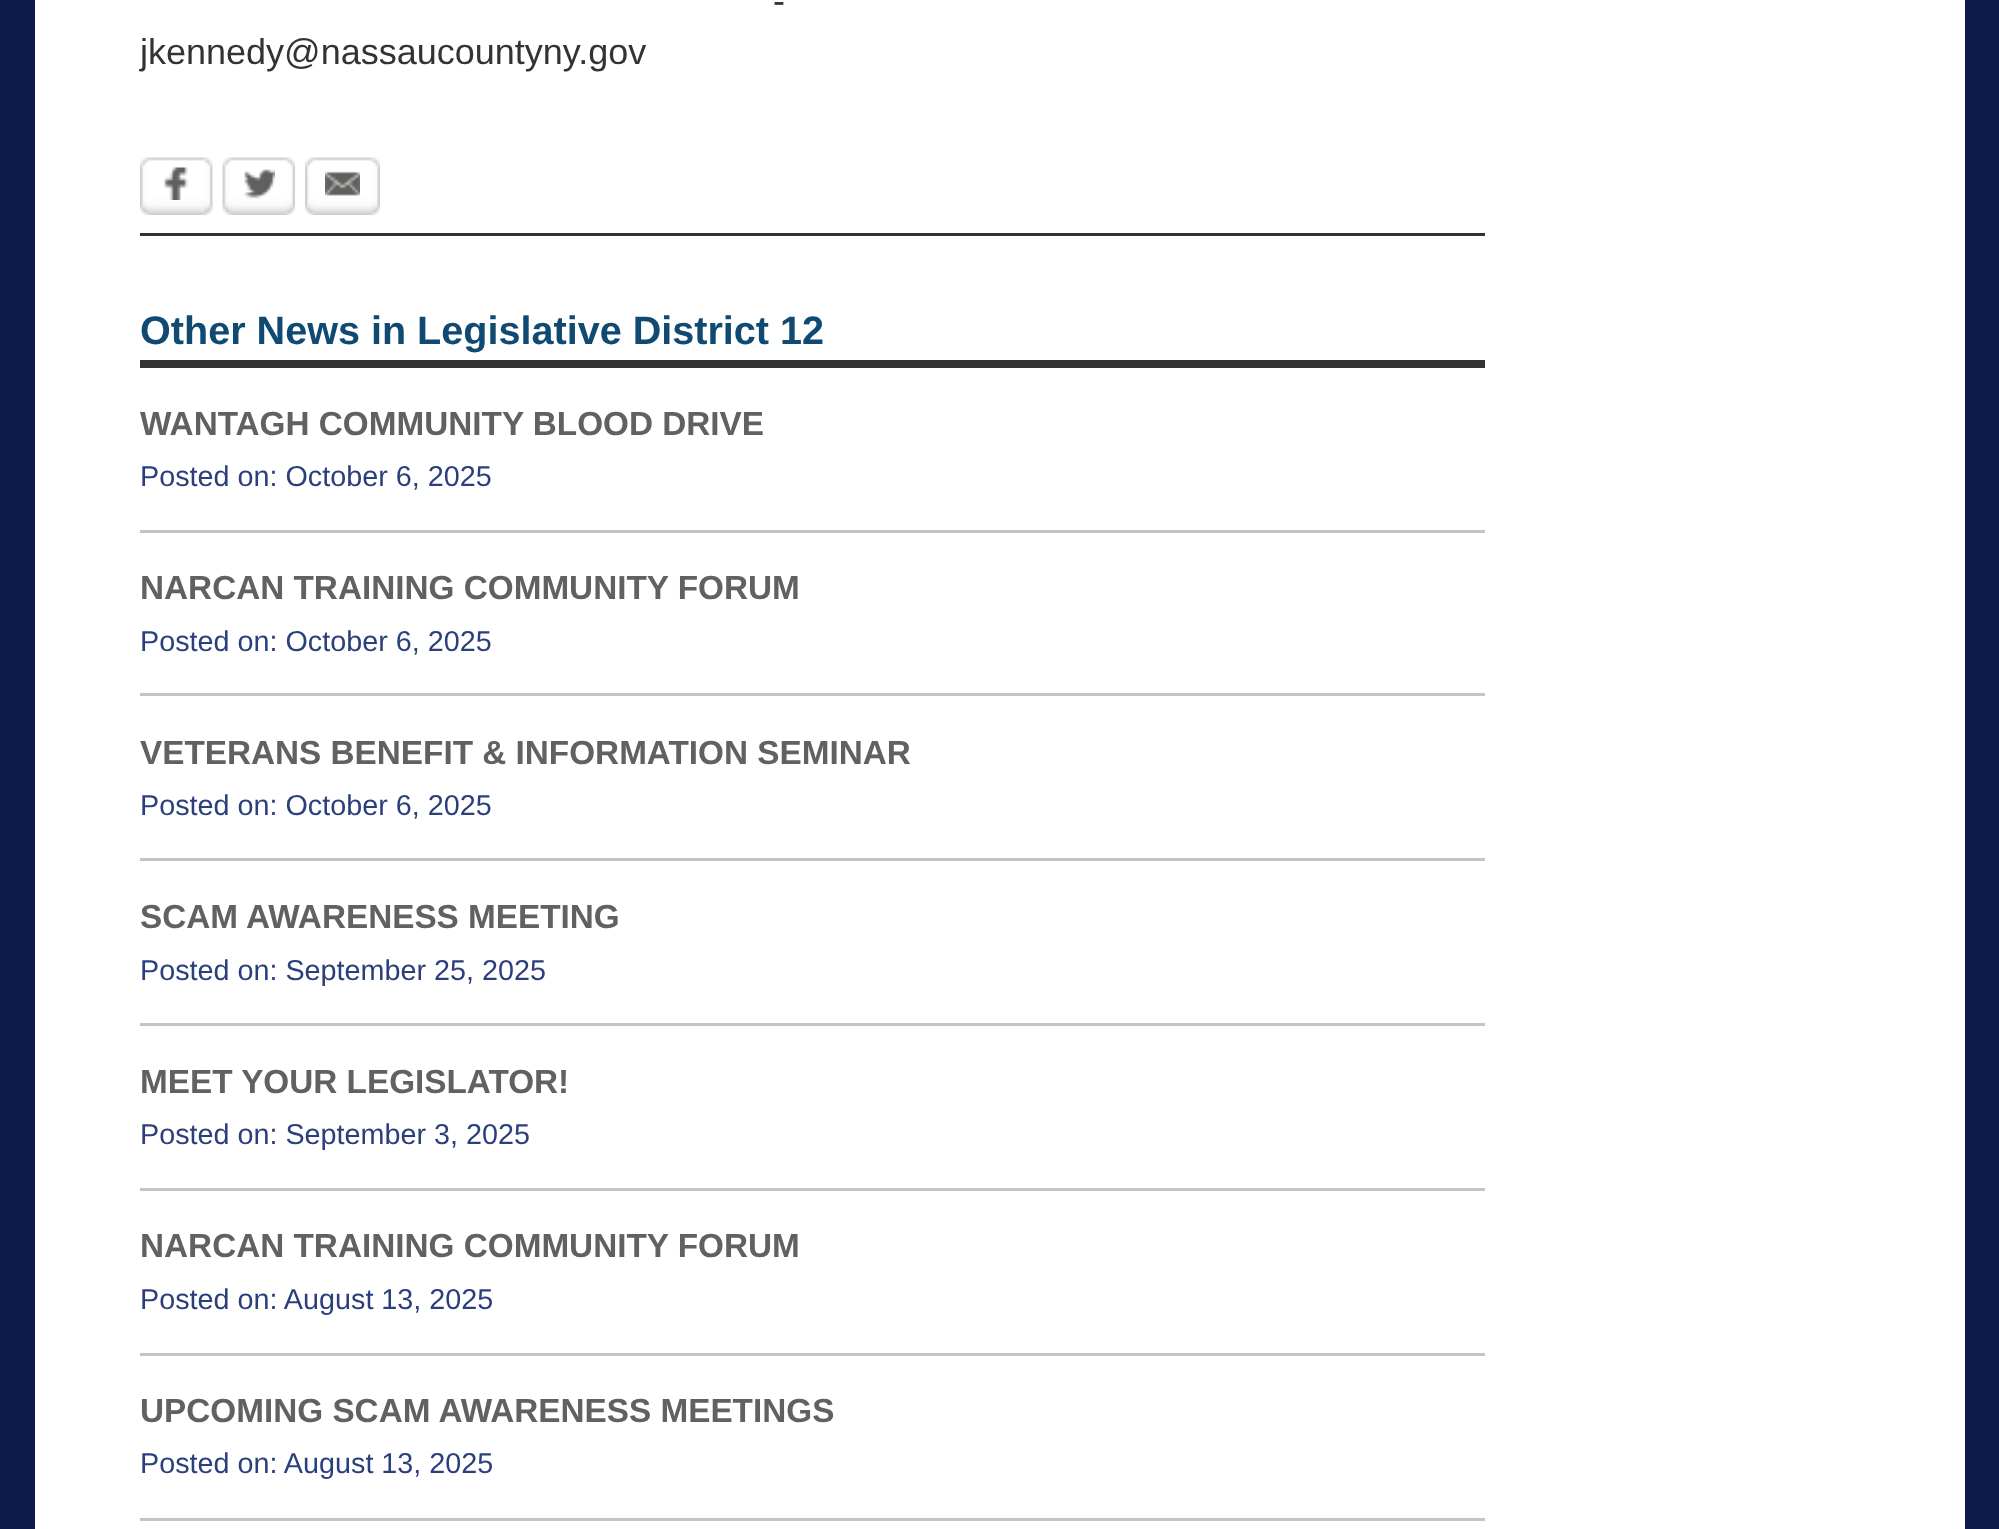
<svg xmlns="http://www.w3.org/2000/svg" width="1999" height="1529" viewBox="0 0 1999 1529">
  <rect width="100%" height="100%" fill="#0c1b4a"/>
  <rect x="35" y="0" width="1930" height="1529" fill="#ffffff"/>
  <text x="773" y="13" font-family="Liberation Sans" font-size="36" fill="#333333">-</text>
  <text x="140" y="64" font-family="Liberation Sans" font-size="36" fill="#333333">jkennedy@nassaucountyny.gov</text>
  <image x="202" y="157" width="11" height="58" href="img1.png"/>
  <image x="140" y="157" width="63" height="58" href="img2.png"/>
  <image x="164" y="167" width="25" height="33" href="img3.png"/>
  <image x="285" y="157" width="10" height="58" href="img4.png"/>
  <image x="222" y="157" width="63" height="58" href="img5.png"/>
  <image x="244" y="169" width="31" height="30" href="img6.png"/>
  <image x="370" y="157" width="10" height="58" href="img7.png"/>
  <image x="305" y="157" width="65" height="58" href="img8.png"/>
  <image x="325" y="171" width="35" height="25" href="img9.png"/>
  <rect x="140" y="233" width="1345" height="3" fill="#333333"/>
  <rect x="140" y="360" width="1345" height="8" fill="#333333"/>
  <text x="140" y="344" font-family="Liberation Sans" font-size="39.6" font-weight="bold" fill="#104a73">Other News in Legislative District 12</text>
  <rect x="140" y="530" width="1345" height="3" fill="#c5c4c4"/>
  <text x="140" y="435" font-family="Liberation Sans" font-size="33.3" font-weight="bold" fill="#626161">WANTAGH COMMUNITY BLOOD DRIVE</text>
  <text x="140" y="486" font-family="Liberation Sans" font-size="28.75" fill="#2b3f7c">Posted on: October 6, 2025</text>
  <rect x="140" y="693" width="1345" height="3" fill="#c5c4c4"/>
  <text x="140" y="599" font-family="Liberation Sans" font-size="33.3" font-weight="bold" fill="#626161">NARCAN TRAINING COMMUNITY FORUM</text>
  <text x="140" y="651" font-family="Liberation Sans" font-size="28.75" fill="#2b3f7c">Posted on: October 6, 2025</text>
  <rect x="140" y="858" width="1345" height="3" fill="#c5c4c4"/>
  <text x="140" y="764" font-family="Liberation Sans" font-size="33.3" font-weight="bold" fill="#626161">VETERANS BENEFIT &amp; INFORMATION SEMINAR</text>
  <text x="140" y="815" font-family="Liberation Sans" font-size="28.75" fill="#2b3f7c">Posted on: October 6, 2025</text>
  <rect x="140" y="1023" width="1345" height="3" fill="#c5c4c4"/>
  <text x="140" y="928" font-family="Liberation Sans" font-size="33.3" font-weight="bold" fill="#626161">SCAM AWARENESS MEETING</text>
  <text x="140" y="980" font-family="Liberation Sans" font-size="28.75" fill="#2b3f7c">Posted on: September 25, 2025</text>
  <rect x="140" y="1188" width="1345" height="3" fill="#c5c4c4"/>
  <text x="140" y="1093" font-family="Liberation Sans" font-size="33.3" font-weight="bold" fill="#626161">MEET YOUR LEGISLATOR!</text>
  <text x="140" y="1144" font-family="Liberation Sans" font-size="28.75" fill="#2b3f7c">Posted on: September 3, 2025</text>
  <rect x="140" y="1353" width="1345" height="3" fill="#c5c4c4"/>
  <text x="140" y="1257" font-family="Liberation Sans" font-size="33.3" font-weight="bold" fill="#626161">NARCAN TRAINING COMMUNITY FORUM</text>
  <text x="140" y="1309" font-family="Liberation Sans" font-size="28.75" fill="#2b3f7c">Posted on: August 13, 2025</text>
  <rect x="140" y="1518" width="1345" height="3" fill="#c5c4c4"/>
  <text x="140" y="1422" font-family="Liberation Sans" font-size="33.3" font-weight="bold" fill="#626161">UPCOMING SCAM AWARENESS MEETINGS</text>
  <text x="140" y="1473" font-family="Liberation Sans" font-size="28.75" fill="#2b3f7c">Posted on: August 13, 2025</text>
</svg>
